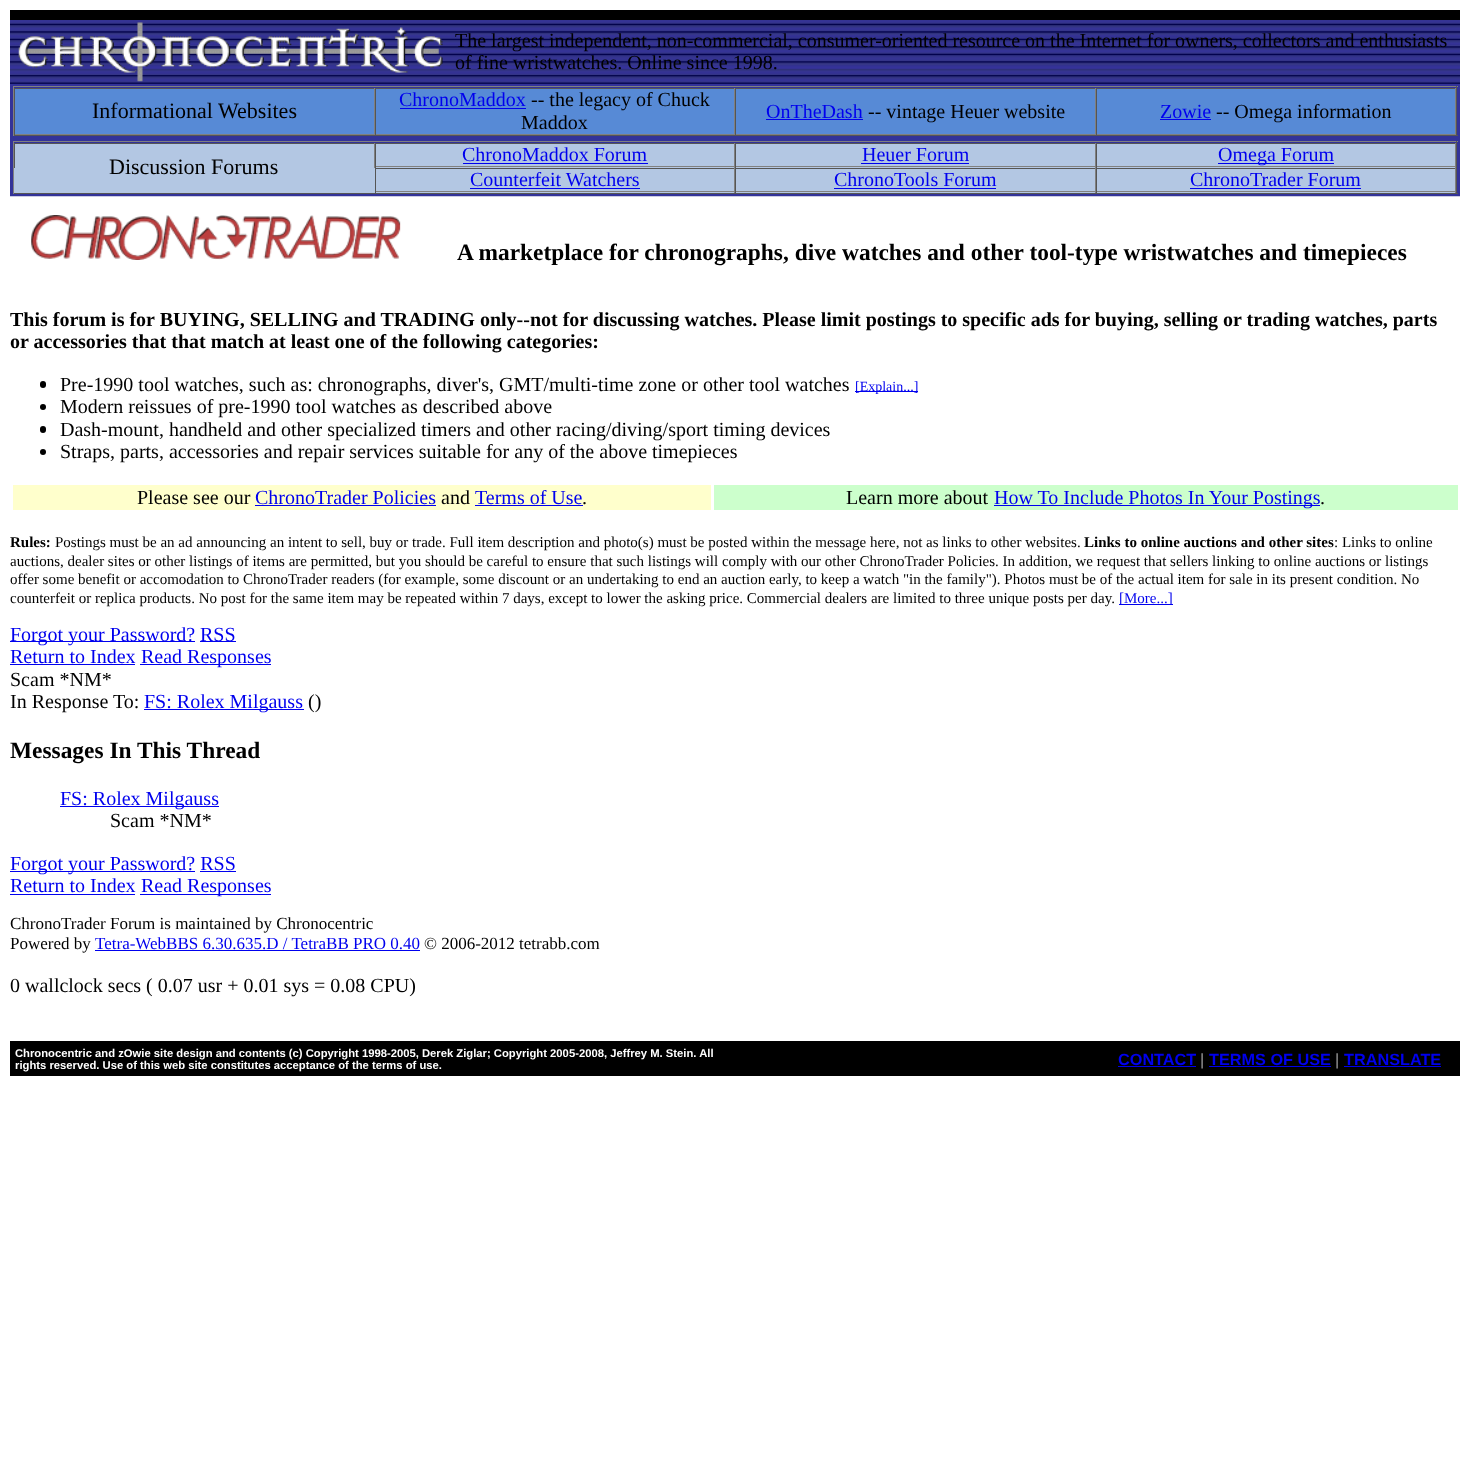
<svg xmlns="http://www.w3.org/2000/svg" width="1470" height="1465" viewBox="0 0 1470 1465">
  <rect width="100%" height="100%" fill="#ffffff"/>
  <image x="10" y="20" width="1450" height="177" href="img1.png"/>
  <rect x="10" y="10" width="1450" height="10" fill="#000000"/>
  <image x="18" y="22" width="425" height="60" href="img2.png"/>
  <text x="455" y="47" font-family="Liberation Serif" font-size="20" fill="#000000">The largest independent, non-commercial, consumer-oriented resource on the Internet for owners, collectors and enthusiasts</text>
  <text x="455" y="69" font-family="Liberation Serif" font-size="20" fill="#000000">of fine wristwatches. Online since 1998.</text>
  <rect x="10" y="84" width="1450" height="112" fill="#333399"/>
  <rect x="13" y="86" width="1445" height="1" fill="#808080"/>
  <rect x="1456" y="86" width="1" height="50" fill="#555555"/>
  <rect x="13" y="135" width="1445" height="1" fill="#555555"/>
  <rect x="13" y="86" width="1" height="50" fill="#808080"/>
  <rect x="15" y="89" width="1440" height="45" fill="#578ad6"/>
  <rect x="14" y="88" width="1442" height="1" fill="#555555"/>
  <rect x="374" y="88" width="1" height="47" fill="#808080"/>
  <rect x="14" y="134" width="361" height="1" fill="#808080"/>
  <rect x="14" y="88" width="1" height="47" fill="#555555"/>
  <text x="92" y="118" font-family="Liberation Serif" font-size="22" fill="#000000">Informational Websites</text>
  <rect x="734" y="88" width="1" height="47" fill="#808080"/>
  <rect x="375" y="134" width="360" height="1" fill="#808080"/>
  <rect x="375" y="88" width="1" height="47" fill="#555555"/>
  <text x="399" y="106" font-family="Liberation Serif" font-size="20" fill="#0000ee">ChronoMaddox</text>
  <rect x="400" y="108" width="126" height="1" fill="#0000ee"/>
  <text x="531" y="106" font-family="Liberation Serif" font-size="20" fill="#000000">-- the legacy of Chuck</text>
  <text x="521" y="129" font-family="Liberation Serif" font-size="20" fill="#000000">Maddox</text>
  <rect x="1095" y="88" width="1" height="47" fill="#808080"/>
  <rect x="735" y="134" width="361" height="1" fill="#808080"/>
  <rect x="735" y="88" width="1" height="47" fill="#555555"/>
  <text x="766" y="118" font-family="Liberation Serif" font-size="20" fill="#0000ee">OnTheDash</text>
  <rect x="766" y="119" width="97" height="1" fill="#0000ee"/>
  <text x="868" y="118" font-family="Liberation Serif" font-size="20" fill="#000000">-- vintage Heuer website</text>
  <rect x="1455" y="88" width="1" height="47" fill="#808080"/>
  <rect x="1096" y="134" width="360" height="1" fill="#808080"/>
  <rect x="1096" y="88" width="1" height="47" fill="#555555"/>
  <text x="1160" y="118" font-family="Liberation Serif" font-size="20" fill="#0000ee">Zowie</text>
  <rect x="1160" y="119" width="51" height="1" fill="#0000ee"/>
  <text x="1216" y="118" font-family="Liberation Serif" font-size="20" fill="#000000">-- Omega information</text>
  <rect x="13" y="141" width="1445" height="1" fill="#808080"/>
  <rect x="1456" y="141" width="1" height="53" fill="#555555"/>
  <rect x="13" y="193" width="1445" height="1" fill="#555555"/>
  <rect x="13" y="141" width="1" height="53" fill="#808080"/>
  <rect x="15" y="144" width="1440" height="24" fill="#b3c7e3"/>
  <rect x="14" y="143" width="1442" height="1" fill="#555555"/>
  <rect x="374" y="143" width="1" height="25" fill="#808080"/>
  <rect x="14" y="143" width="1" height="25" fill="#555555"/>
  <rect x="14" y="168" width="1441" height="25" fill="#b3c7e3"/>
  <text x="109" y="174" font-family="Liberation Serif" font-size="22" fill="#000000">Discussion Forums</text>
  <rect x="734" y="143" width="1" height="25" fill="#808080"/>
  <rect x="375" y="166" width="360" height="1" fill="#808080"/>
  <rect x="375" y="143" width="1" height="25" fill="#555555"/>
  <text x="462" y="161" font-family="Liberation Serif" font-size="20" fill="#0000ee">ChronoMaddox Forum</text>
  <rect x="463" y="163" width="185" height="1" fill="#0000ee"/>
  <rect x="1095" y="143" width="1" height="25" fill="#808080"/>
  <rect x="735" y="166" width="361" height="1" fill="#808080"/>
  <rect x="735" y="143" width="1" height="25" fill="#555555"/>
  <text x="862" y="161" font-family="Liberation Serif" font-size="20" fill="#0000ee">Heuer Forum</text>
  <rect x="861" y="163" width="108" height="1" fill="#0000ee"/>
  <rect x="1455" y="143" width="1" height="25" fill="#808080"/>
  <rect x="1096" y="166" width="360" height="1" fill="#808080"/>
  <rect x="1096" y="143" width="1" height="25" fill="#555555"/>
  <rect x="1218" y="163" width="116" height="1" fill="#0000ee"/>
  <text x="1218" y="161" font-family="Liberation Serif" font-size="20" fill="#0000ee">Omega Forum</text>
  <rect x="375" y="168" width="1081" height="1" fill="#555555"/>
  <rect x="734" y="168" width="1" height="25" fill="#808080"/>
  <rect x="375" y="191" width="360" height="1" fill="#808080"/>
  <rect x="375" y="168" width="1" height="25" fill="#555555"/>
  <text x="470" y="186" font-family="Liberation Serif" font-size="20" fill="#0000ee">Counterfeit Watchers</text>
  <rect x="470" y="188" width="170" height="1" fill="#0000ee"/>
  <rect x="1095" y="168" width="1" height="25" fill="#808080"/>
  <rect x="735" y="191" width="361" height="1" fill="#808080"/>
  <rect x="735" y="168" width="1" height="25" fill="#555555"/>
  <text x="834" y="186" font-family="Liberation Serif" font-size="20" fill="#0000ee">ChronoTools Forum</text>
  <rect x="834" y="188" width="162" height="1" fill="#0000ee"/>
  <rect x="1455" y="168" width="1" height="25" fill="#808080"/>
  <rect x="1096" y="191" width="360" height="1" fill="#808080"/>
  <rect x="1096" y="168" width="1" height="25" fill="#555555"/>
  <text x="1190" y="186" font-family="Liberation Serif" font-size="20" fill="#0000ee">ChronoTrader Forum</text>
  <rect x="1190" y="188" width="171" height="1" fill="#0000ee"/>
  <image x="31" y="215" width="370" height="45" href="img3.png"/>
  <text x="457" y="260" font-family="Liberation Serif" font-size="23.4" font-weight="bold" fill="#000000">A marketplace for chronographs, dive watches and other tool-type wristwatches and timepieces</text>
  <text x="10" y="326" font-family="Liberation Serif" font-size="20" font-weight="bold" fill="#000000">This forum is for BUYING, SELLING and TRADING only--not for discussing watches. Please limit postings to specific ads for buying, selling or trading watches, parts</text>
  <text x="10" y="348" font-family="Liberation Serif" font-size="20" font-weight="bold" fill="#000000">or accessories that that match at least one of the following categories:</text>
  <rect x="40" y="381" width="6" height="7" rx="3" fill="#000000"/>
  <text x="60" y="391" font-family="Liberation Serif" font-size="20" fill="#000000">Pre-1990 tool watches, such as: chronographs, diver's, GMT/multi-time zone or other tool watches</text>
  <rect x="855" y="391" width="63" height="1" fill="#0000ee"/>
  <text x="855" y="391" font-family="Liberation Serif" font-size="14" fill="#0000ee">[Explain...]</text>
  <circle cx="43" cy="407" r="3" fill="#000000"/>
  <text x="60" y="413" font-family="Liberation Serif" font-size="20" fill="#000000">Modern reissues of pre-1990 tool watches as described above</text>
  <rect x="40" y="426" width="6" height="7" rx="3" fill="#000000"/>
  <text x="60" y="436" font-family="Liberation Serif" font-size="20" fill="#000000">Dash-mount, handheld and other specialized timers and other racing/diving/sport timing devices</text>
  <circle cx="43" cy="452" r="3" fill="#000000"/>
  <text x="60" y="458" font-family="Liberation Serif" font-size="20" fill="#000000">Straps, parts, accessories and repair services suitable for any of the above timepieces</text>
  <rect x="13" y="485" width="698" height="25" fill="#ffffcc"/>
  <text x="137" y="504" font-family="Liberation Serif" font-size="20" fill="#000000">Please see our</text>
  <text x="255" y="504" font-family="Liberation Serif" font-size="20" fill="#0000ee">ChronoTrader Policies</text>
  <rect x="255" y="505" width="181" height="1" fill="#0000ee"/>
  <text x="441" y="504" font-family="Liberation Serif" font-size="20" fill="#000000">and</text>
  <text x="475" y="504" font-family="Liberation Serif" font-size="20" fill="#0000ee">Terms of Use</text>
  <rect x="475" y="505" width="108" height="1" fill="#0000ee"/>
  <text x="582" y="504" font-family="Liberation Serif" font-size="20" fill="#000000">.</text>
  <rect x="714" y="485" width="744" height="25" fill="#ccffcc"/>
  <text x="846" y="504" font-family="Liberation Serif" font-size="20" fill="#000000">Learn more about</text>
  <rect x="994" y="505" width="326" height="1" fill="#0000ee"/>
  <text x="994" y="504" font-family="Liberation Serif" font-size="20" fill="#0000ee">How To Include Photos In Your Postings</text>
  <text x="1320" y="504" font-family="Liberation Serif" font-size="20" fill="#000000">.</text>
  <text x="10" y="547" font-family="Liberation Serif" font-size="15" font-weight="bold" fill="#000000">Rules:</text>
  <text x="55" y="547" font-family="Liberation Serif" font-size="15" fill="#000000">Postings must be an ad announcing an intent to sell, buy or trade. Full item description and photo(s) must be posted within the message here, not as links to other websites.</text>
  <text x="1084" y="547" font-family="Liberation Serif" font-size="15" font-weight="bold" fill="#000000">Links to online auctions and other sites</text>
  <text x="1334" y="547" font-family="Liberation Serif" font-size="15" fill="#000000">: Links to online</text>
  <text x="10" y="566" font-family="Liberation Serif" font-size="15" fill="#000000">auctions, dealer sites or other listings of items are permitted, but you should be careful to ensure that such listings will comply with our other ChronoTrader Policies. In addition, we request that sellers linking to online auctions or listings</text>
  <text x="10" y="584" font-family="Liberation Serif" font-size="15" fill="#000000">offer some benefit or accomodation to ChronoTrader readers (for example, some discount or an undertaking to end an auction early, to keep a watch "in the family"). Photos must be of the actual item for sale in its present condition. No</text>
  <text x="10" y="603" font-family="Liberation Serif" font-size="15" fill="#000000">counterfeit or replica products. No post for the same item may be repeated within 7 days, except to lower the asking price. Commercial dealers are limited to three unique posts per day.</text>
  <rect x="1119" y="604" width="54" height="1" fill="#0000ee"/>
  <text x="1119" y="603" font-family="Liberation Serif" font-size="15" fill="#0000ee">[More...]</text>
  <rect x="10" y="641" width="185" height="1" fill="#0000ee"/>
  <text x="10" y="641" font-family="Liberation Serif" font-size="20" fill="#0000ee">Forgot your Password?</text>
  <rect x="200" y="641" width="36" height="1" fill="#0000ee"/>
  <text x="200" y="641" font-family="Liberation Serif" font-size="20" fill="#0000ee">RSS</text>
  <text x="10" y="663" font-family="Liberation Serif" font-size="20" fill="#0000ee">Return to Index</text>
  <rect x="10" y="664" width="125" height="1" fill="#0000ee"/>
  <rect x="140" y="664" width="131" height="1" fill="#0000ee"/>
  <text x="141" y="663" font-family="Liberation Serif" font-size="20" fill="#0000ee">Read Responses</text>
  <text x="10" y="686" font-family="Liberation Serif" font-size="20" fill="#000000">Scam *NM*</text>
  <text x="10" y="708" font-family="Liberation Serif" font-size="20" fill="#000000">In Response To:</text>
  <rect x="144" y="709" width="160" height="1" fill="#0000ee"/>
  <text x="144" y="708" font-family="Liberation Serif" font-size="20" fill="#0000ee">FS: Rolex Milgauss</text>
  <text x="308" y="708" font-family="Liberation Serif" font-size="20" fill="#000000">()</text>
  <text x="10" y="758" font-family="Liberation Serif" font-size="23.4" font-weight="bold" fill="#000000">Messages In This Thread</text>
  <rect x="60" y="806" width="159" height="1" fill="#0000ee"/>
  <text x="60" y="805" font-family="Liberation Serif" font-size="20" fill="#0000ee">FS: Rolex Milgauss</text>
  <text x="110" y="827" font-family="Liberation Serif" font-size="20" fill="#000000">Scam *NM*</text>
  <rect x="10" y="871" width="185" height="1" fill="#0000ee"/>
  <text x="10" y="870" font-family="Liberation Serif" font-size="20" fill="#0000ee">Forgot your Password? RSS</text>
  <rect x="200" y="871" width="36" height="1" fill="#0000ee"/>
  <text x="10" y="892" font-family="Liberation Serif" font-size="20" fill="#0000ee">Return to Index</text>
  <rect x="10" y="894" width="125" height="1" fill="#0000ee"/>
  <rect x="140" y="894" width="131" height="1" fill="#0000ee"/>
  <text x="141" y="892" font-family="Liberation Serif" font-size="20" fill="#0000ee">Read Responses</text>
  <text x="10" y="929" font-family="Liberation Serif" font-size="17" fill="#000000">ChronoTrader Forum is maintained by Chronocentric</text>
  <text x="10" y="949" font-family="Liberation Serif" font-size="17" fill="#000000">Powered by</text>
  <text x="95" y="949" font-family="Liberation Serif" font-size="17" fill="#0000ee">Tetra-WebBBS 6.30.635.D / TetraBB PRO 0.40</text>
  <rect x="95" y="950" width="325" height="1" fill="#0000ee"/>
  <text x="424" y="949" font-family="Liberation Serif" font-size="17" fill="#000000">© 2006-2012 tetrabb.com</text>
  <text x="10" y="992" font-family="Liberation Serif" font-size="20" fill="#000000">0 wallclock secs ( 0.07 usr + 0.01 sys = 0.08 CPU)</text>
  <rect x="10" y="1041" width="1450" height="35" fill="#000000"/>
  <text x="15" y="1057" font-family="Liberation Sans" font-size="11.25" font-weight="bold" fill="#ffffff">Chronocentric and zOwie site design and contents (c) Copyright 1998-2005, Derek Ziglar; Copyright 2005-2008, Jeffrey M. Stein. All</text>
  <text x="15" y="1069" font-family="Liberation Sans" font-size="11.25" font-weight="bold" fill="#ffffff">rights reserved. Use of this web site constitutes acceptance of the terms of use.</text>
  <text x="1118" y="1065" font-family="Liberation Sans" font-size="16.25" font-weight="bold" fill="#0000ee">CONTACT</text>
  <rect x="1118" y="1066" width="78" height="1" fill="#0000ee"/>
  <text x="1200" y="1065" font-family="Liberation Sans" font-size="16.25" fill="#999999">|</text>
  <text x="1209" y="1065" font-family="Liberation Sans" font-size="16.25" font-weight="bold" fill="#0000ee">TERMS OF USE</text>
  <rect x="1209" y="1066" width="122" height="1" fill="#0000ee"/>
  <text x="1335" y="1065" font-family="Liberation Sans" font-size="16.25" fill="#999999">|</text>
  <text x="1344" y="1065" font-family="Liberation Sans" font-size="16.25" font-weight="bold" fill="#0000ee">TRANSLATE</text>
  <rect x="1344" y="1066" width="97" height="1" fill="#0000ee"/>
</svg>
